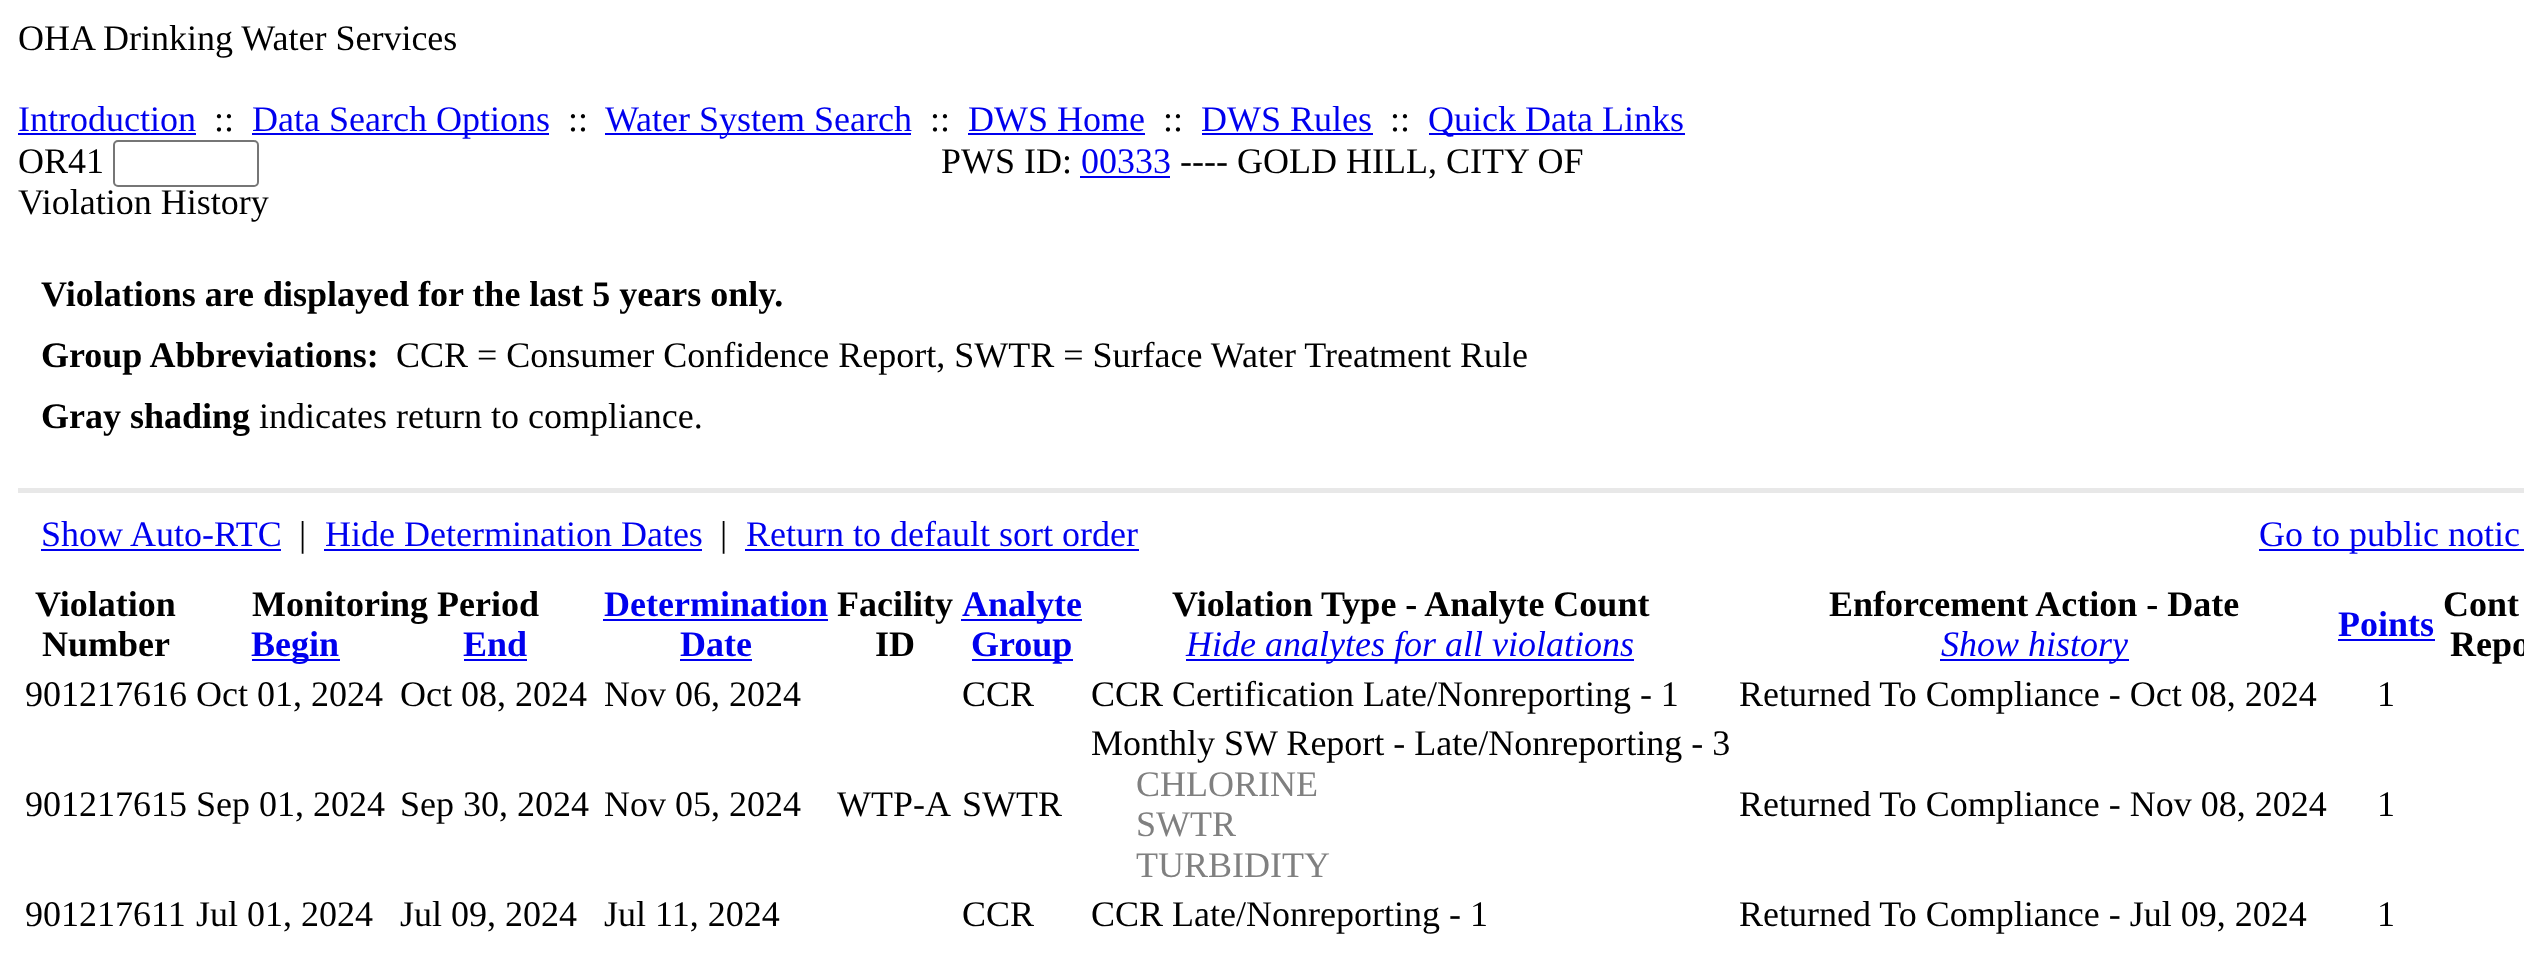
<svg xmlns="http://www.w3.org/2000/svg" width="2524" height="956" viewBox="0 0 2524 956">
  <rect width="100%" height="100%" fill="#ffffff"/>
  <text x="18" y="50" font-family="Liberation Serif" font-size="36" fill="#000000">OHA Drinking Water Services</text>
  <text x="18" y="131" font-family="Liberation Serif" font-size="36" fill="#0000ee">Introduction</text>
  <rect x="18" y="133" width="178" height="2" fill="#0000ee"/>
  <text x="214" y="131" font-family="Liberation Serif" font-size="36" fill="#000000">::</text>
  <rect x="252" y="133" width="297" height="2" fill="#0000ee"/>
  <text x="252" y="131" font-family="Liberation Serif" font-size="36" fill="#0000ee">Data Search Options</text>
  <text x="568" y="131" font-family="Liberation Serif" font-size="36" fill="#000000">::</text>
  <rect x="605" y="133" width="306" height="2" fill="#0000ee"/>
  <text x="605" y="131" font-family="Liberation Serif" font-size="36" fill="#0000ee">Water System Search</text>
  <text x="930" y="131" font-family="Liberation Serif" font-size="36" fill="#000000">::</text>
  <text x="968" y="131" font-family="Liberation Serif" font-size="36" fill="#0000ee">DWS Home</text>
  <rect x="968" y="133" width="177" height="2" fill="#0000ee"/>
  <text x="1163" y="131" font-family="Liberation Serif" font-size="36" fill="#000000">::</text>
  <text x="1201" y="131" font-family="Liberation Serif" font-size="36" fill="#0000ee">DWS Rules</text>
  <rect x="1202" y="133" width="171" height="2" fill="#0000ee"/>
  <text x="1390" y="131" font-family="Liberation Serif" font-size="36" fill="#000000">::</text>
  <rect x="1429" y="133" width="256" height="2" fill="#0000ee"/>
  <text x="1428" y="131" font-family="Liberation Serif" font-size="36" fill="#0000ee">Quick Data Links</text>
  <text x="18" y="173" font-family="Liberation Serif" font-size="36" fill="#000000">OR41</text>
  <rect x="114" y="141" width="144" height="45" rx="4" fill="none" stroke="#767676" stroke-width="2"/>
  <text x="941" y="173" font-family="Liberation Serif" font-size="36" fill="#000000">PWS ID:</text>
  <text x="1081" y="173" font-family="Liberation Serif" font-size="36" fill="#0000ee">00333</text>
  <rect x="1080" y="176" width="90" height="2" fill="#0000ee"/>
  <text x="1180" y="173" font-family="Liberation Serif" font-size="36" fill="#000000">---- GOLD HILL, CITY OF</text>
  <text x="18" y="214" font-family="Liberation Serif" font-size="36" fill="#000000">Violation History</text>
  <text x="41" y="306" font-family="Liberation Serif" font-size="36" font-weight="bold" fill="#000000">Violations are displayed for the last 5 years only.</text>
  <text x="41" y="367" font-family="Liberation Serif" font-size="36" font-weight="bold" fill="#000000">Group Abbreviations:</text>
  <text x="396" y="367" font-family="Liberation Serif" font-size="36" fill="#000000">CCR = Consumer Confidence Report, SWTR = Surface Water Treatment Rule</text>
  <text x="41" y="428" font-family="Liberation Serif" font-size="36" font-weight="bold" fill="#000000">Gray shading</text>
  <text x="259" y="428" font-family="Liberation Serif" font-size="36" fill="#000000">indicates return to compliance.</text>
  <rect x="18" y="488" width="2506" height="5" fill="#e8e8e8"/>
  <text x="41" y="546" font-family="Liberation Serif" font-size="36" fill="#0000ee">Show Auto-RTC</text>
  <rect x="41" y="549" width="240" height="2" fill="#0000ee"/>
  <text x="299" y="546" font-family="Liberation Serif" font-size="36" fill="#000000">|</text>
  <text x="325" y="546" font-family="Liberation Serif" font-size="36" fill="#0000ee">Hide Determination Dates</text>
  <rect x="324" y="549" width="378" height="2" fill="#0000ee"/>
  <text x="720" y="546" font-family="Liberation Serif" font-size="36" fill="#000000">|</text>
  <text x="746" y="546" font-family="Liberation Serif" font-size="36" fill="#0000ee">Return to default sort order</text>
  <rect x="745" y="549" width="394" height="2" fill="#0000ee"/>
  <rect x="2259" y="549" width="265" height="2" fill="#0000ee"/>
  <text x="2259" y="546" font-family="Liberation Serif" font-size="36" fill="#0000ee">Go to public notic</text>
  <text x="35" y="616" font-family="Liberation Serif" font-size="36" font-weight="bold" fill="#000000">Violation</text>
  <text x="42" y="656" font-family="Liberation Serif" font-size="36" font-weight="bold" fill="#000000">Number</text>
  <text x="252" y="616" font-family="Liberation Serif" font-size="36" font-weight="bold" fill="#000000">Monitoring Period</text>
  <rect x="252" y="659" width="88" height="2" fill="#0000ee"/>
  <text x="251" y="656" font-family="Liberation Serif" font-size="36" font-weight="bold" fill="#0000ee">Begin</text>
  <text x="463" y="656" font-family="Liberation Serif" font-size="36" font-weight="bold" fill="#0000ee">End</text>
  <rect x="464" y="659" width="63" height="2" fill="#0000ee"/>
  <text x="604" y="616" font-family="Liberation Serif" font-size="36" font-weight="bold" fill="#0000ee">Determination</text>
  <rect x="603" y="619" width="225" height="2" fill="#0000ee"/>
  <text x="680" y="656" font-family="Liberation Serif" font-size="36" font-weight="bold" fill="#0000ee">Date</text>
  <rect x="680" y="659" width="72" height="2" fill="#0000ee"/>
  <text x="837" y="616" font-family="Liberation Serif" font-size="36" font-weight="bold" fill="#000000">Facility</text>
  <text x="875" y="656" font-family="Liberation Serif" font-size="36" font-weight="bold" fill="#000000">ID</text>
  <rect x="961" y="619" width="121" height="2" fill="#0000ee"/>
  <text x="962" y="616" font-family="Liberation Serif" font-size="36" font-weight="bold" fill="#0000ee">Analyte</text>
  <rect x="972" y="659" width="101" height="2" fill="#0000ee"/>
  <text x="971" y="656" font-family="Liberation Serif" font-size="36" font-weight="bold" fill="#0000ee">Group</text>
  <text x="1172" y="616" font-family="Liberation Serif" font-size="36" font-weight="bold" fill="#000000">Violation Type - Analyte Count</text>
  <rect x="1186" y="659" width="448" height="2" fill="#0000ee"/>
  <text x="1186" y="656" font-family="Liberation Serif" font-size="36" font-style="italic" fill="#0000ee">Hide analytes for all violations</text>
  <text x="1829" y="616" font-family="Liberation Serif" font-size="36" font-weight="bold" fill="#000000">Enforcement Action - Date</text>
  <rect x="1940" y="659" width="189" height="2" fill="#0000ee"/>
  <text x="1941" y="656" font-family="Liberation Serif" font-size="36" font-style="italic" fill="#0000ee">Show history</text>
  <text x="2338" y="636" font-family="Liberation Serif" font-size="36" font-weight="bold" fill="#0000ee">Points</text>
  <rect x="2338" y="639" width="97" height="2" fill="#0000ee"/>
  <text x="2443" y="616" font-family="Liberation Serif" font-size="36" font-weight="bold" fill="#000000">Cont</text>
  <text x="2450" y="656" font-family="Liberation Serif" font-size="36" font-weight="bold" fill="#000000">Repo</text>
  <text x="25" y="706" font-family="Liberation Serif" font-size="36" fill="#000000">901217616 Oct 01, 2024</text>
  <text x="400" y="706" font-family="Liberation Serif" font-size="36" fill="#000000">Oct 08, 2024</text>
  <text x="604" y="706" font-family="Liberation Serif" font-size="36" fill="#000000">Nov 06, 2024</text>
  <text x="962" y="706" font-family="Liberation Serif" font-size="36" fill="#000000">CCR</text>
  <text x="1091" y="706" font-family="Liberation Serif" font-size="36" fill="#000000">CCR Certification Late/Nonreporting - 1</text>
  <text x="1739" y="706" font-family="Liberation Serif" font-size="36" fill="#000000">Returned To Compliance - Oct 08, 2024</text>
  <text x="2377" y="706" font-family="Liberation Serif" font-size="36" fill="#000000">1</text>
  <text x="25" y="816" font-family="Liberation Serif" font-size="36" fill="#000000">901217615 Sep 01, 2024</text>
  <text x="400" y="816" font-family="Liberation Serif" font-size="36" fill="#000000">Sep 30, 2024</text>
  <text x="604" y="816" font-family="Liberation Serif" font-size="36" fill="#000000">Nov 05, 2024</text>
  <text x="837" y="816" font-family="Liberation Serif" font-size="36" fill="#000000">WTP-A</text>
  <text x="962" y="816" font-family="Liberation Serif" font-size="36" fill="#000000">SWTR</text>
  <text x="1091" y="755" font-family="Liberation Serif" font-size="36" fill="#000000">Monthly SW Report - Late/Nonreporting - 3</text>
  <text x="1136" y="796" font-family="Liberation Serif" font-size="36" fill="#808080">CHLORINE</text>
  <text x="1136" y="836" font-family="Liberation Serif" font-size="36" fill="#808080">SWTR</text>
  <text x="1136" y="877" font-family="Liberation Serif" font-size="36" fill="#808080">TURBIDITY</text>
  <text x="1739" y="816" font-family="Liberation Serif" font-size="36" fill="#000000">Returned To Compliance - Nov 08, 2024</text>
  <text x="2377" y="816" font-family="Liberation Serif" font-size="36" fill="#000000">1</text>
  <text x="25" y="926" font-family="Liberation Serif" font-size="36" fill="#000000">901217611</text>
  <text x="196" y="926" font-family="Liberation Serif" font-size="36" fill="#000000">Jul 01, 2024</text>
  <text x="400" y="926" font-family="Liberation Serif" font-size="36" fill="#000000">Jul 09, 2024</text>
  <text x="604" y="926" font-family="Liberation Serif" font-size="36" fill="#000000">Jul 11, 2024</text>
  <text x="962" y="926" font-family="Liberation Serif" font-size="36" fill="#000000">CCR</text>
  <text x="1091" y="926" font-family="Liberation Serif" font-size="36" fill="#000000">CCR Late/Nonreporting - 1</text>
  <text x="1739" y="926" font-family="Liberation Serif" font-size="36" fill="#000000">Returned To Compliance - Jul 09, 2024</text>
  <text x="2377" y="926" font-family="Liberation Serif" font-size="36" fill="#000000">1</text>
</svg>
